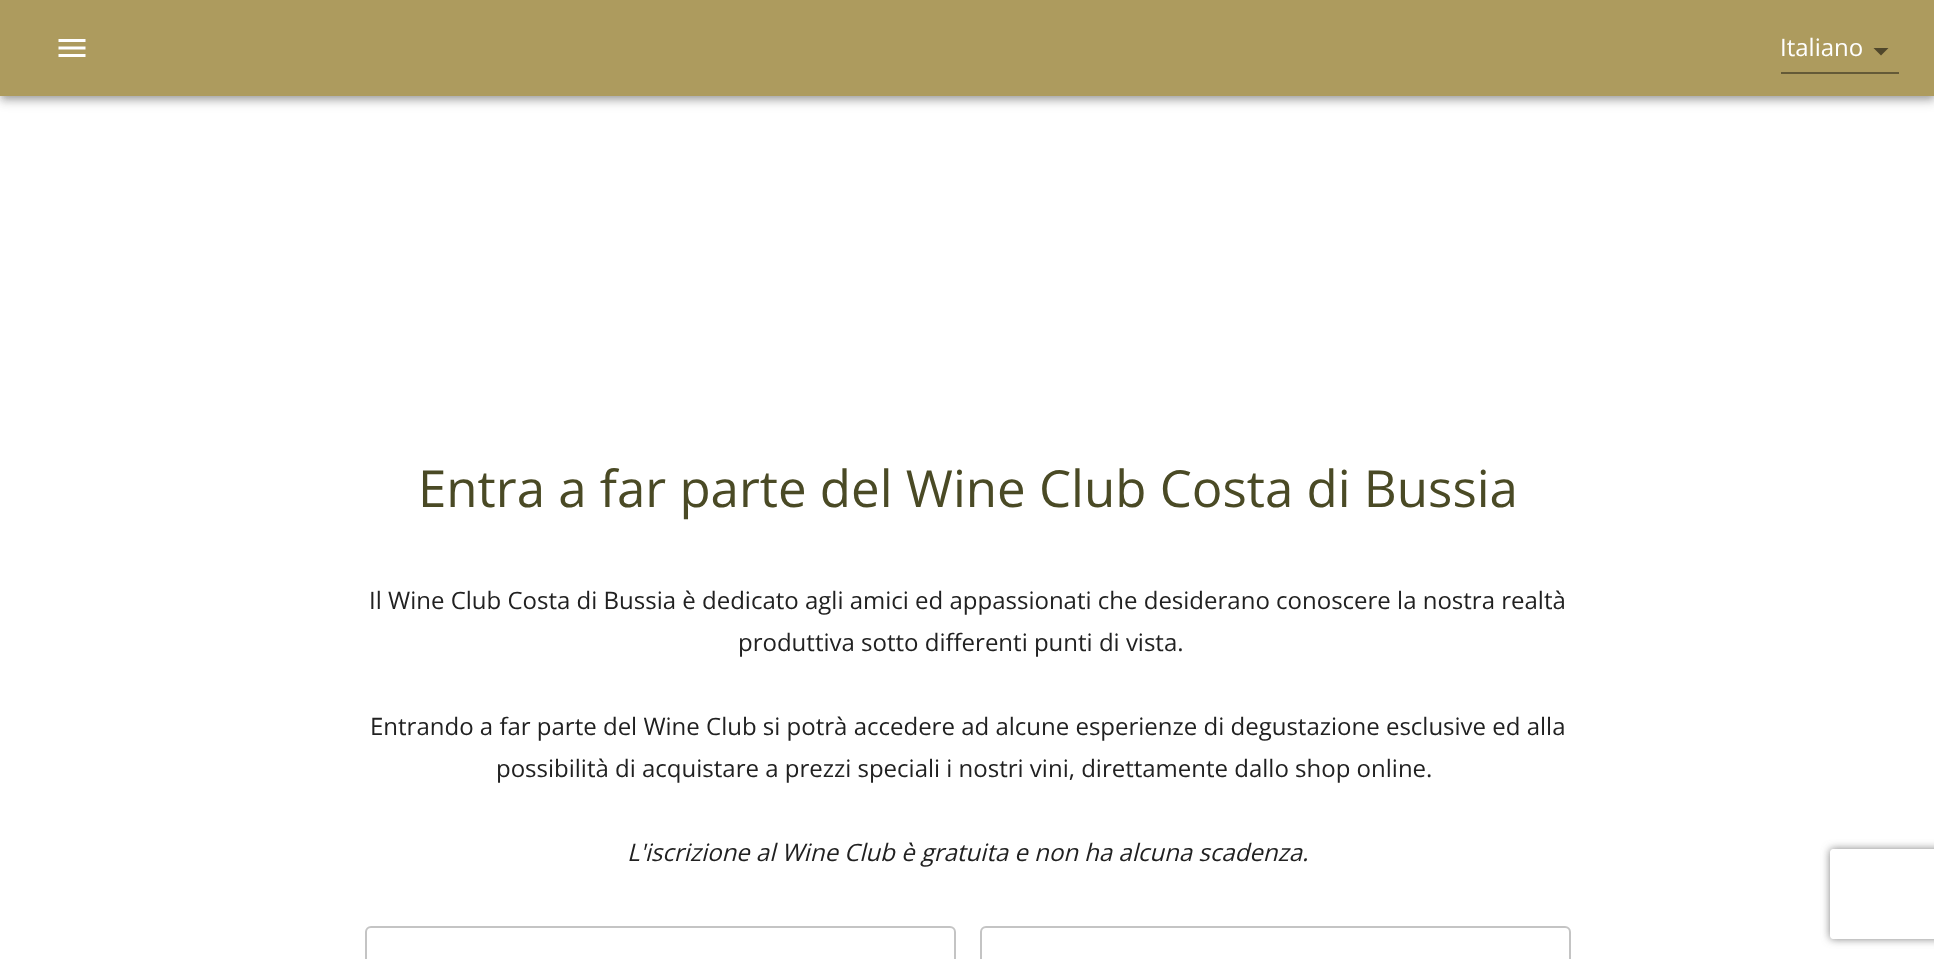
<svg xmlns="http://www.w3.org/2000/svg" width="1934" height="959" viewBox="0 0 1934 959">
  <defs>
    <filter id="blur1" x="-50%" y="-200%" width="200%" height="500%"><feGaussianBlur stdDeviation="7.5"/></filter>
    <filter id="blur2" x="-50%" y="-200%" width="200%" height="500%"><feGaussianBlur stdDeviation="4"/></filter>
    <filter id="blur3" x="-50%" y="-200%" width="200%" height="500%"><feGaussianBlur stdDeviation="3"/></filter>
    <clipPath id="clip1"><path d="M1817 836H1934V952H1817ZM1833 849H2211C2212.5 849 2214 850.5 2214 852V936C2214 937.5 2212.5 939 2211 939H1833C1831.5 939 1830 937.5 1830 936V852C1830 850.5 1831.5 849 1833 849Z" clip-rule="evenodd"/></clipPath>
  </defs>
  <rect width="100%" height="100%" fill="#ffffff"/>
  <rect x="0" y="2" width="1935" height="96" fill="#000000" fill-opacity="0.12" filter="url(#blur1)"/>
  <rect x="0" y="6" width="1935" height="96" fill="#000000" fill-opacity="0.14" filter="url(#blur2)"/>
  <rect x="2" y="5" width="1932" height="93" fill="#000000" fill-opacity="0.2" filter="url(#blur3)"/>
  <rect x="0" y="0" width="1934" height="96" fill="#ad9b5e"/>
  <image x="58" y="39" width="28" height="18" href="img1.png"/>
  <text x="1780" y="56" font-family="Open Sans" font-size="24" fill="#ffffff">Italiano</text>
  <path d="M1873.5 48L1881 55.5L1888.5 48Z" fill="#50472b"/>
  <rect x="1781" y="72" width="118" height="2" fill="#645a37"/>
  <text x="418" y="507" font-family="Open Sans" font-size="51" fill="#4a4a25">Entra a far parte del Wine Club Costa di Bussia</text>
  <text x="369" y="609" font-family="Open Sans" font-size="24" fill="#212121">Il Wine Club Costa di Bussia è dedicato agli amici ed appassionati che desiderano conoscere la nostra realtà</text>
  <text x="738" y="651" font-family="Open Sans" font-size="24" fill="#212121">produttiva sotto differenti punti di vista.</text>
  <text x="370" y="735" font-family="Open Sans" font-size="24" fill="#212121">Entrando a far parte del Wine Club si potrà accedere ad alcune esperienze di degustazione esclusive ed alla</text>
  <text x="496" y="777" font-family="Open Sans" font-size="24" fill="#212121">possibilità di acquistare a prezzi speciali i nostri vini, direttamente dallo shop online.</text>
  <text x="627" y="861" font-family="Open Sans" font-size="24" font-style="italic" fill="#212121">L'iscrizione al Wine Club è gratuita e non ha alcuna scadenza.</text>
  <rect x="366" y="927" width="589" height="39" rx="5" fill="none" stroke="#c4c4c4" stroke-width="2"/>
  <rect x="981" y="927" width="589" height="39" rx="5" fill="none" stroke="#c4c4c4" stroke-width="2"/>
  <g clip-path="url(#clip1)">
    <rect x="1830" y="849" width="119" height="90" rx="3" fill="#808080" filter="url(#blur2)"/>
  </g>
</svg>
